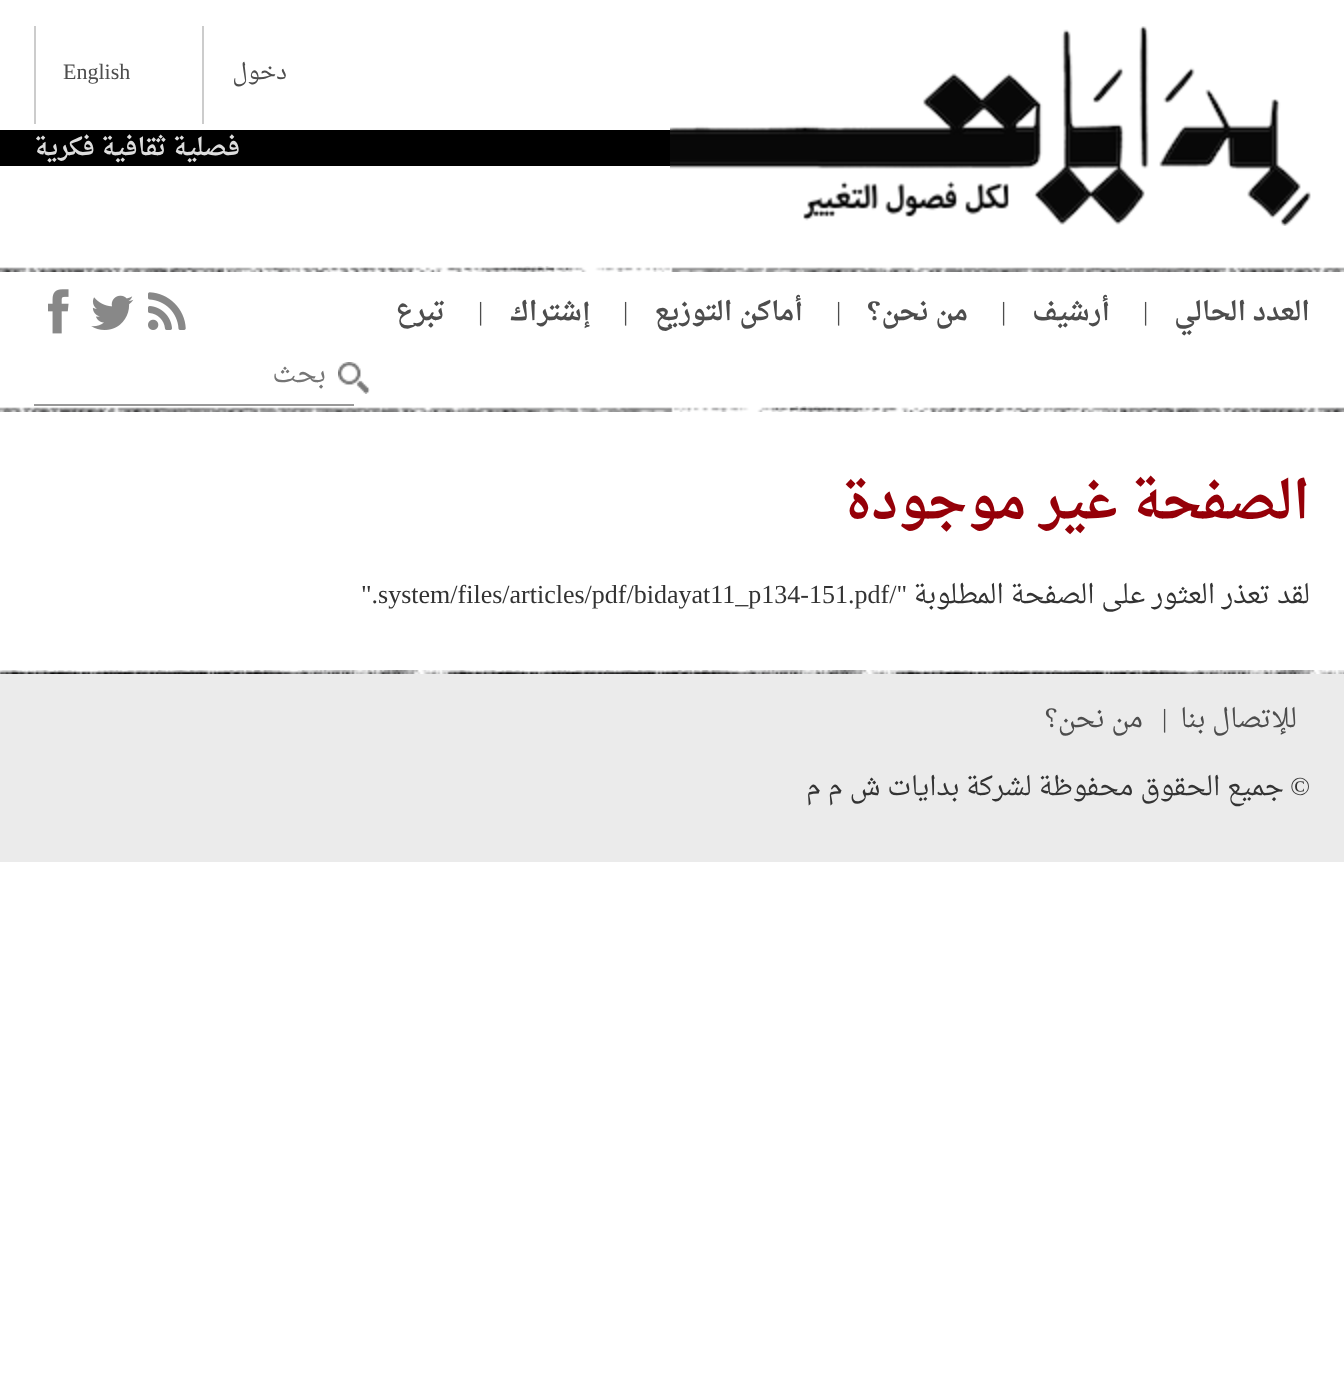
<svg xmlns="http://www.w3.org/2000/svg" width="1344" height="1383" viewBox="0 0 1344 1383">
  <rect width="100%" height="100%" fill="#ffffff"/>
  <rect x="202" y="26" width="2" height="98" fill="#cccccc"/>
  <text x="287" y="79" font-family="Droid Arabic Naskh" font-size="22" direction="rtl" fill="#4d4d4d">دخول</text>
  <rect x="34" y="26" width="2" height="98" fill="#cccccc"/>
  <text x="63" y="79" font-family="Liberation Serif" font-size="22" fill="#4d4d4d">English</text>
  <image x="670" y="26" width="641" height="200" href="img1.png"/>
  <rect x="0" y="130" width="670" height="36" fill="#000000"/>
  <text x="240" y="155" font-family="Droid Arabic Naskh" font-size="24" font-weight="bold" direction="rtl" fill="#dddddd">فصلية ثقافية فكرية</text>
  <image x="0" y="266" width="1344" height="146" href="img2.png"/>
  <text x="1310" y="320" font-family="Droid Arabic Naskh" font-size="26" font-weight="bold" direction="rtl" fill="#4d4d4d">العدد الحالي</text>
  <text x="1143" y="320" font-family="Liberation Serif" font-size="26" fill="#4d4d4d">|</text>
  <text x="1110" y="320" font-family="Droid Arabic Naskh" font-size="26" font-weight="bold" direction="rtl" fill="#4d4d4d">أرشيف</text>
  <text x="1001" y="320" font-family="Liberation Serif" font-size="26" fill="#4d4d4d">|</text>
  <text x="968" y="320" font-family="Droid Arabic Naskh" font-size="26" font-weight="bold" direction="rtl" fill="#4d4d4d">من نحن؟</text>
  <text x="836" y="320" font-family="Liberation Serif" font-size="26" fill="#4d4d4d">|</text>
  <text x="803" y="320" font-family="Droid Arabic Naskh" font-size="26" font-weight="bold" direction="rtl" fill="#4d4d4d">أماكن التوزيع</text>
  <text x="623" y="320" font-family="Liberation Serif" font-size="26" fill="#4d4d4d">|</text>
  <text x="591" y="320" font-family="Droid Arabic Naskh" font-size="26" font-weight="bold" direction="rtl" fill="#4d4d4d">إشتراك</text>
  <text x="478" y="320" font-family="Liberation Serif" font-size="26" fill="#4d4d4d">|</text>
  <text x="445" y="320" font-family="Droid Arabic Naskh" font-size="26" font-weight="bold" direction="rtl" fill="#4d4d4d">تبرع</text>
  <image x="148" y="292" width="38" height="38" href="img3.png"/>
  <image x="91" y="295" width="43" height="35" href="img4.png"/>
  <image x="48" y="289" width="21" height="45" href="img5.png"/>
  <image x="338" y="362" width="32" height="32" href="img6.png"/>
  <rect x="34" y="404" width="320" height="2" fill="#999999"/>
  <text x="326" y="382" font-family="Droid Arabic Naskh" font-size="26" direction="rtl" fill="#757575">بحث</text>
  <image x="0" y="670" width="1344" height="4" href="img7.png"/>
  <text x="1310" y="518" font-family="Droid Arabic Naskh" font-size="52" font-weight="bold" direction="rtl" fill="#950008">الصفحة غير موجودة</text>
  <text x="1310" y="603" font-family="Droid Arabic Naskh" font-size="26" direction="rtl" fill="#333333">لقد تعذر العثور على الصفحة المطلوبة</text>
  <text x="907" y="603" font-family="Liberation Serif" font-size="26" direction="rtl" fill="#333333">"/</text>
  <text x="361" y="603" font-family="Liberation Serif" font-size="26" fill="#333333">".system/files/articles/pdf/bidayat11_p134-151.pdf</text>
  <rect x="0" y="674" width="1344" height="188" fill="#ebebeb"/>
  <text x="1297" y="727" font-family="Droid Arabic Naskh" font-size="26" direction="rtl" fill="#4d4d4d">للإتصال بنا</text>
  <text x="1162" y="727" font-family="Liberation Serif" font-size="26" fill="#4d4d4d">|</text>
  <text x="1143" y="727" font-family="Droid Arabic Naskh" font-size="26" direction="rtl" fill="#4d4d4d">من نحن؟</text>
  <text x="1310" y="795" font-family="Liberation Serif" font-size="26" direction="rtl" fill="#333333">©</text>
  <text x="1284" y="795" font-family="Droid Arabic Naskh" font-size="26" direction="rtl" fill="#333333">جميع الحقوق محفوظة لشركة بدايات ش م م</text>
</svg>
